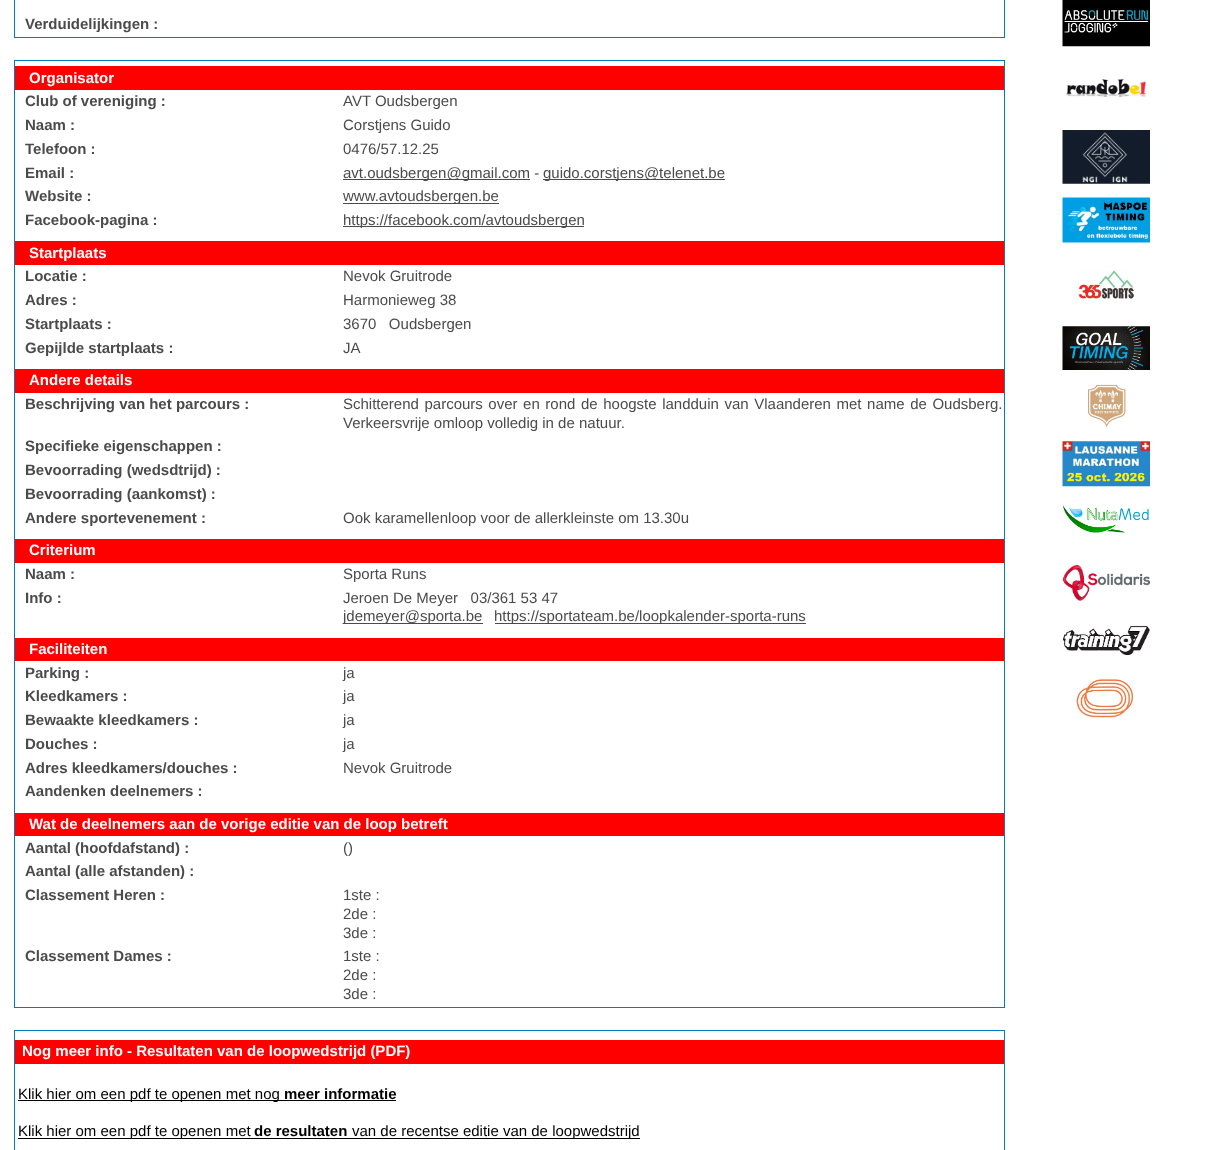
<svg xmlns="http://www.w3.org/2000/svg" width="1223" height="1150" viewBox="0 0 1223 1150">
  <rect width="100%" height="100%" fill="#ffffff"/>
  <rect x="14.5" y="-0.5" width="990" height="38" fill="none" stroke="#0079c2"/>
  <text x="25" y="29" font-family="Liberation Sans" font-size="15" font-weight="bold" fill="#4b4b4b">Verduidelijkingen :</text>
  <rect x="14.5" y="60.5" width="990" height="947" fill="none" stroke="#0079c2"/>
  <rect x="15" y="66" width="989" height="24" fill="#ff0000"/>
  <text x="29" y="83" font-family="Liberation Sans" font-size="15" font-weight="bold" fill="#ffffff">Organisator</text>
  <text x="25" y="106" font-family="Liberation Sans" font-size="15" font-weight="bold" fill="#4b4b4b">Club of vereniging :</text>
  <text x="343" y="106" font-family="Liberation Sans" font-size="15" fill="#4b4b4b">AVT Oudsbergen</text>
  <text x="25" y="130" font-family="Liberation Sans" font-size="15" font-weight="bold" fill="#4b4b4b">Naam :</text>
  <text x="343" y="130" font-family="Liberation Sans" font-size="15" fill="#4b4b4b">Corstjens Guido</text>
  <text x="25" y="154" font-family="Liberation Sans" font-size="15" font-weight="bold" fill="#4b4b4b">Telefoon :</text>
  <text x="343" y="154" font-family="Liberation Sans" font-size="15" fill="#4b4b4b">0476/57.12.25</text>
  <text x="25" y="178" font-family="Liberation Sans" font-size="15" font-weight="bold" fill="#4b4b4b">Email :</text>
  <rect x="343" y="179" width="187" height="1" fill="#4b4b4b"/>
  <text x="343" y="178" font-family="Liberation Sans" font-size="15" fill="#4b4b4b">avt.oudsbergen@gmail.com -</text>
  <rect x="543" y="179" width="182" height="1" fill="#4b4b4b"/>
  <text x="543" y="178" font-family="Liberation Sans" font-size="15" fill="#4b4b4b">guido.corstjens@telenet.be</text>
  <text x="25" y="201" font-family="Liberation Sans" font-size="15" font-weight="bold" fill="#4b4b4b">Website :</text>
  <rect x="343" y="203" width="156" height="1" fill="#4b4b4b"/>
  <text x="343" y="201" font-family="Liberation Sans" font-size="15" fill="#4b4b4b">www.avtoudsbergen.be</text>
  <text x="25" y="225" font-family="Liberation Sans" font-size="15" font-weight="bold" fill="#4b4b4b">Facebook-pagina :</text>
  <rect x="343" y="226" width="241" height="1" fill="#4b4b4b"/>
  <text x="343" y="225" font-family="Liberation Sans" font-size="15" fill="#4b4b4b">https://facebook.com/avtoudsbergen</text>
  <rect x="15" y="241" width="989" height="24" fill="#ff0000"/>
  <text x="29" y="258" font-family="Liberation Sans" font-size="15" font-weight="bold" fill="#ffffff">Startplaats</text>
  <text x="25" y="281" font-family="Liberation Sans" font-size="15" font-weight="bold" fill="#4b4b4b">Locatie :</text>
  <text x="343" y="281" font-family="Liberation Sans" font-size="15" fill="#4b4b4b">Nevok Gruitrode</text>
  <text x="25" y="305" font-family="Liberation Sans" font-size="15" font-weight="bold" fill="#4b4b4b">Adres :</text>
  <text x="343" y="305" font-family="Liberation Sans" font-size="15" fill="#4b4b4b">Harmonieweg 38</text>
  <text x="25" y="329" font-family="Liberation Sans" font-size="15" font-weight="bold" fill="#4b4b4b">Startplaats :</text>
  <text x="343" y="329" font-family="Liberation Sans" font-size="15" fill="#4b4b4b" xml:space="preserve">3670   Oudsbergen</text>
  <text x="25" y="353" font-family="Liberation Sans" font-size="15" font-weight="bold" fill="#4b4b4b">Gepijlde startplaats :</text>
  <text x="343" y="353" font-family="Liberation Sans" font-size="15" fill="#4b4b4b">JA</text>
  <rect x="15" y="369" width="989" height="24" fill="#ff0000"/>
  <text x="29" y="385" font-family="Liberation Sans" font-size="15" font-weight="bold" fill="#ffffff">Andere details</text>
  <text x="25" y="409" font-family="Liberation Sans" font-size="15" font-weight="bold" fill="#4b4b4b">Beschrijving van het parcours :</text>
  <text x="343" y="409" word-spacing="1.4" font-family="Liberation Sans" font-size="15" fill="#4b4b4b">Schitterend parcours over en rond de hoogste landduin van Vlaanderen met name de Oudsberg.</text>
  <text x="343" y="428" font-family="Liberation Sans" font-size="15" fill="#4b4b4b">Verkeersvrije omloop volledig in de natuur.</text>
  <text x="25" y="451" font-family="Liberation Sans" font-size="15" font-weight="bold" fill="#4b4b4b">Specifieke eigenschappen :</text>
  <text x="25" y="475" font-family="Liberation Sans" font-size="15" font-weight="bold" fill="#4b4b4b">Bevoorrading (wedsdtrijd) :</text>
  <text x="25" y="499" font-family="Liberation Sans" font-size="15" font-weight="bold" fill="#4b4b4b">Bevoorrading (aankomst) :</text>
  <text x="25" y="523" font-family="Liberation Sans" font-size="15" font-weight="bold" fill="#4b4b4b">Andere sportevenement :</text>
  <text x="343" y="523" font-family="Liberation Sans" font-size="15" fill="#4b4b4b">Ook karamellenloop voor de allerkleinste om 13.30u</text>
  <rect x="15" y="539" width="989" height="24" fill="#ff0000"/>
  <text x="29" y="555" font-family="Liberation Sans" font-size="15" font-weight="bold" fill="#ffffff">Criterium</text>
  <text x="25" y="579" font-family="Liberation Sans" font-size="15" font-weight="bold" fill="#4b4b4b">Naam :</text>
  <text x="343" y="579" font-family="Liberation Sans" font-size="15" fill="#4b4b4b">Sporta Runs</text>
  <text x="25" y="603" font-family="Liberation Sans" font-size="15" font-weight="bold" fill="#4b4b4b">Info :</text>
  <text x="343" y="603" font-family="Liberation Sans" font-size="15" fill="#4b4b4b" xml:space="preserve">Jeroen De Meyer   03/361 53 47</text>
  <rect x="343" y="623" width="140" height="1" fill="#4b4b4b"/>
  <text x="343" y="621" font-family="Liberation Sans" font-size="15" fill="#4b4b4b">jdemeyer@sporta.be</text>
  <rect x="495" y="623" width="311" height="1" fill="#4b4b4b"/>
  <text x="494" y="621" font-family="Liberation Sans" font-size="15" fill="#4b4b4b">https://sportateam.be/loopkalender-sporta-runs</text>
  <rect x="15" y="638" width="989" height="23" fill="#ff0000"/>
  <text x="29" y="654" font-family="Liberation Sans" font-size="15" font-weight="bold" fill="#ffffff">Faciliteiten</text>
  <text x="25" y="678" font-family="Liberation Sans" font-size="15" font-weight="bold" fill="#4b4b4b">Parking :</text>
  <text x="343" y="678" font-family="Liberation Sans" font-size="15" fill="#4b4b4b">ja</text>
  <text x="25" y="701" font-family="Liberation Sans" font-size="15" font-weight="bold" fill="#4b4b4b">Kleedkamers :</text>
  <text x="343" y="701" font-family="Liberation Sans" font-size="15" fill="#4b4b4b">ja</text>
  <text x="25" y="725" font-family="Liberation Sans" font-size="15" font-weight="bold" fill="#4b4b4b">Bewaakte kleedkamers :</text>
  <text x="343" y="725" font-family="Liberation Sans" font-size="15" fill="#4b4b4b">ja</text>
  <text x="25" y="749" font-family="Liberation Sans" font-size="15" font-weight="bold" fill="#4b4b4b">Douches :</text>
  <text x="343" y="749" font-family="Liberation Sans" font-size="15" fill="#4b4b4b">ja</text>
  <text x="25" y="773" font-family="Liberation Sans" font-size="15" font-weight="bold" fill="#4b4b4b">Adres kleedkamers/douches :</text>
  <text x="343" y="773" font-family="Liberation Sans" font-size="15" fill="#4b4b4b">Nevok Gruitrode</text>
  <text x="25" y="796" font-family="Liberation Sans" font-size="15" font-weight="bold" fill="#4b4b4b">Aandenken deelnemers :</text>
  <rect x="15" y="813" width="989" height="23" fill="#ff0000"/>
  <text x="29" y="829" font-family="Liberation Sans" font-size="15" font-weight="bold" fill="#ffffff">Wat de deelnemers aan de vorige editie van de loop betreft</text>
  <text x="25" y="853" font-family="Liberation Sans" font-size="15" font-weight="bold" fill="#4b4b4b">Aantal (hoofdafstand) :</text>
  <text x="343" y="853" font-family="Liberation Sans" font-size="15" fill="#4b4b4b">()</text>
  <text x="25" y="876" font-family="Liberation Sans" font-size="15" font-weight="bold" fill="#4b4b4b">Aantal (alle afstanden) :</text>
  <text x="25" y="900" font-family="Liberation Sans" font-size="15" font-weight="bold" fill="#4b4b4b">Classement Heren :</text>
  <text x="343" y="900" font-family="Liberation Sans" font-size="15" fill="#4b4b4b">1ste :</text>
  <text x="343" y="919" font-family="Liberation Sans" font-size="15" fill="#4b4b4b">2de :</text>
  <text x="343" y="938" font-family="Liberation Sans" font-size="15" fill="#4b4b4b">3de :</text>
  <text x="25" y="961" font-family="Liberation Sans" font-size="15" font-weight="bold" fill="#4b4b4b">Classement Dames :</text>
  <text x="343" y="961" font-family="Liberation Sans" font-size="15" fill="#4b4b4b">1ste :</text>
  <text x="343" y="980" font-family="Liberation Sans" font-size="15" fill="#4b4b4b">2de :</text>
  <text x="343" y="999" font-family="Liberation Sans" font-size="15" fill="#4b4b4b">3de :</text>
  <rect x="14.5" y="1030.5" width="990" height="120" fill="none" stroke="#0079c2"/>
  <rect x="15" y="1040" width="989" height="24" fill="#ff0000"/>
  <text x="22" y="1056" font-family="Liberation Sans" font-size="15" font-weight="bold" fill="#ffffff">Nog meer info - Resultaten van de loopwedstrijd (PDF)</text>
  <rect x="18" y="1100" width="378" height="1" fill="#000000"/>
  <text x="18" y="1099" font-family="Liberation Sans" font-size="15" fill="#000000">Klik hier om een pdf te openen met nog</text>
  <text x="284" y="1099" font-family="Liberation Sans" font-size="15" font-weight="bold" fill="#000000">meer informatie</text>
  <rect x="18" y="1138" width="622" height="1" fill="#000000"/>
  <text x="18" y="1136" font-family="Liberation Sans" font-size="15" fill="#000000">Klik hier om een pdf te openen met</text>
  <text x="254" y="1136" font-family="Liberation Sans" font-size="15" font-weight="bold" fill="#000000">de resultaten</text>
  <text x="352" y="1136" font-family="Liberation Sans" font-size="15" fill="#000000">van de recentse editie van de loopwedstrijd</text>
  <image x="1062" y="0" width="88" height="47" href="img1.png"/>
  <image x="1066" y="79" width="80" height="18" href="img2.png"/>
  <image x="1062" y="130" width="88" height="54" href="img3.png"/>
  <image x="1062" y="197" width="88" height="46" href="img4.png"/>
  <image x="1078" y="270" width="56" height="29" href="img5.png"/>
  <image x="1062" y="326" width="88" height="44" href="img6.png"/>
  <image x="1087" y="384" width="39" height="44" href="img7.png"/>
  <image x="1062" y="441" width="88" height="46" href="img8.png"/>
  <image x="1063" y="505" width="86" height="28" href="img9.png"/>
  <image x="1062" y="565" width="88" height="36" href="img10.png"/>
  <image x="1062" y="625" width="88" height="30" href="img11.png"/>
  <image x="1076" y="677" width="58" height="41" href="img12.png"/>
</svg>
